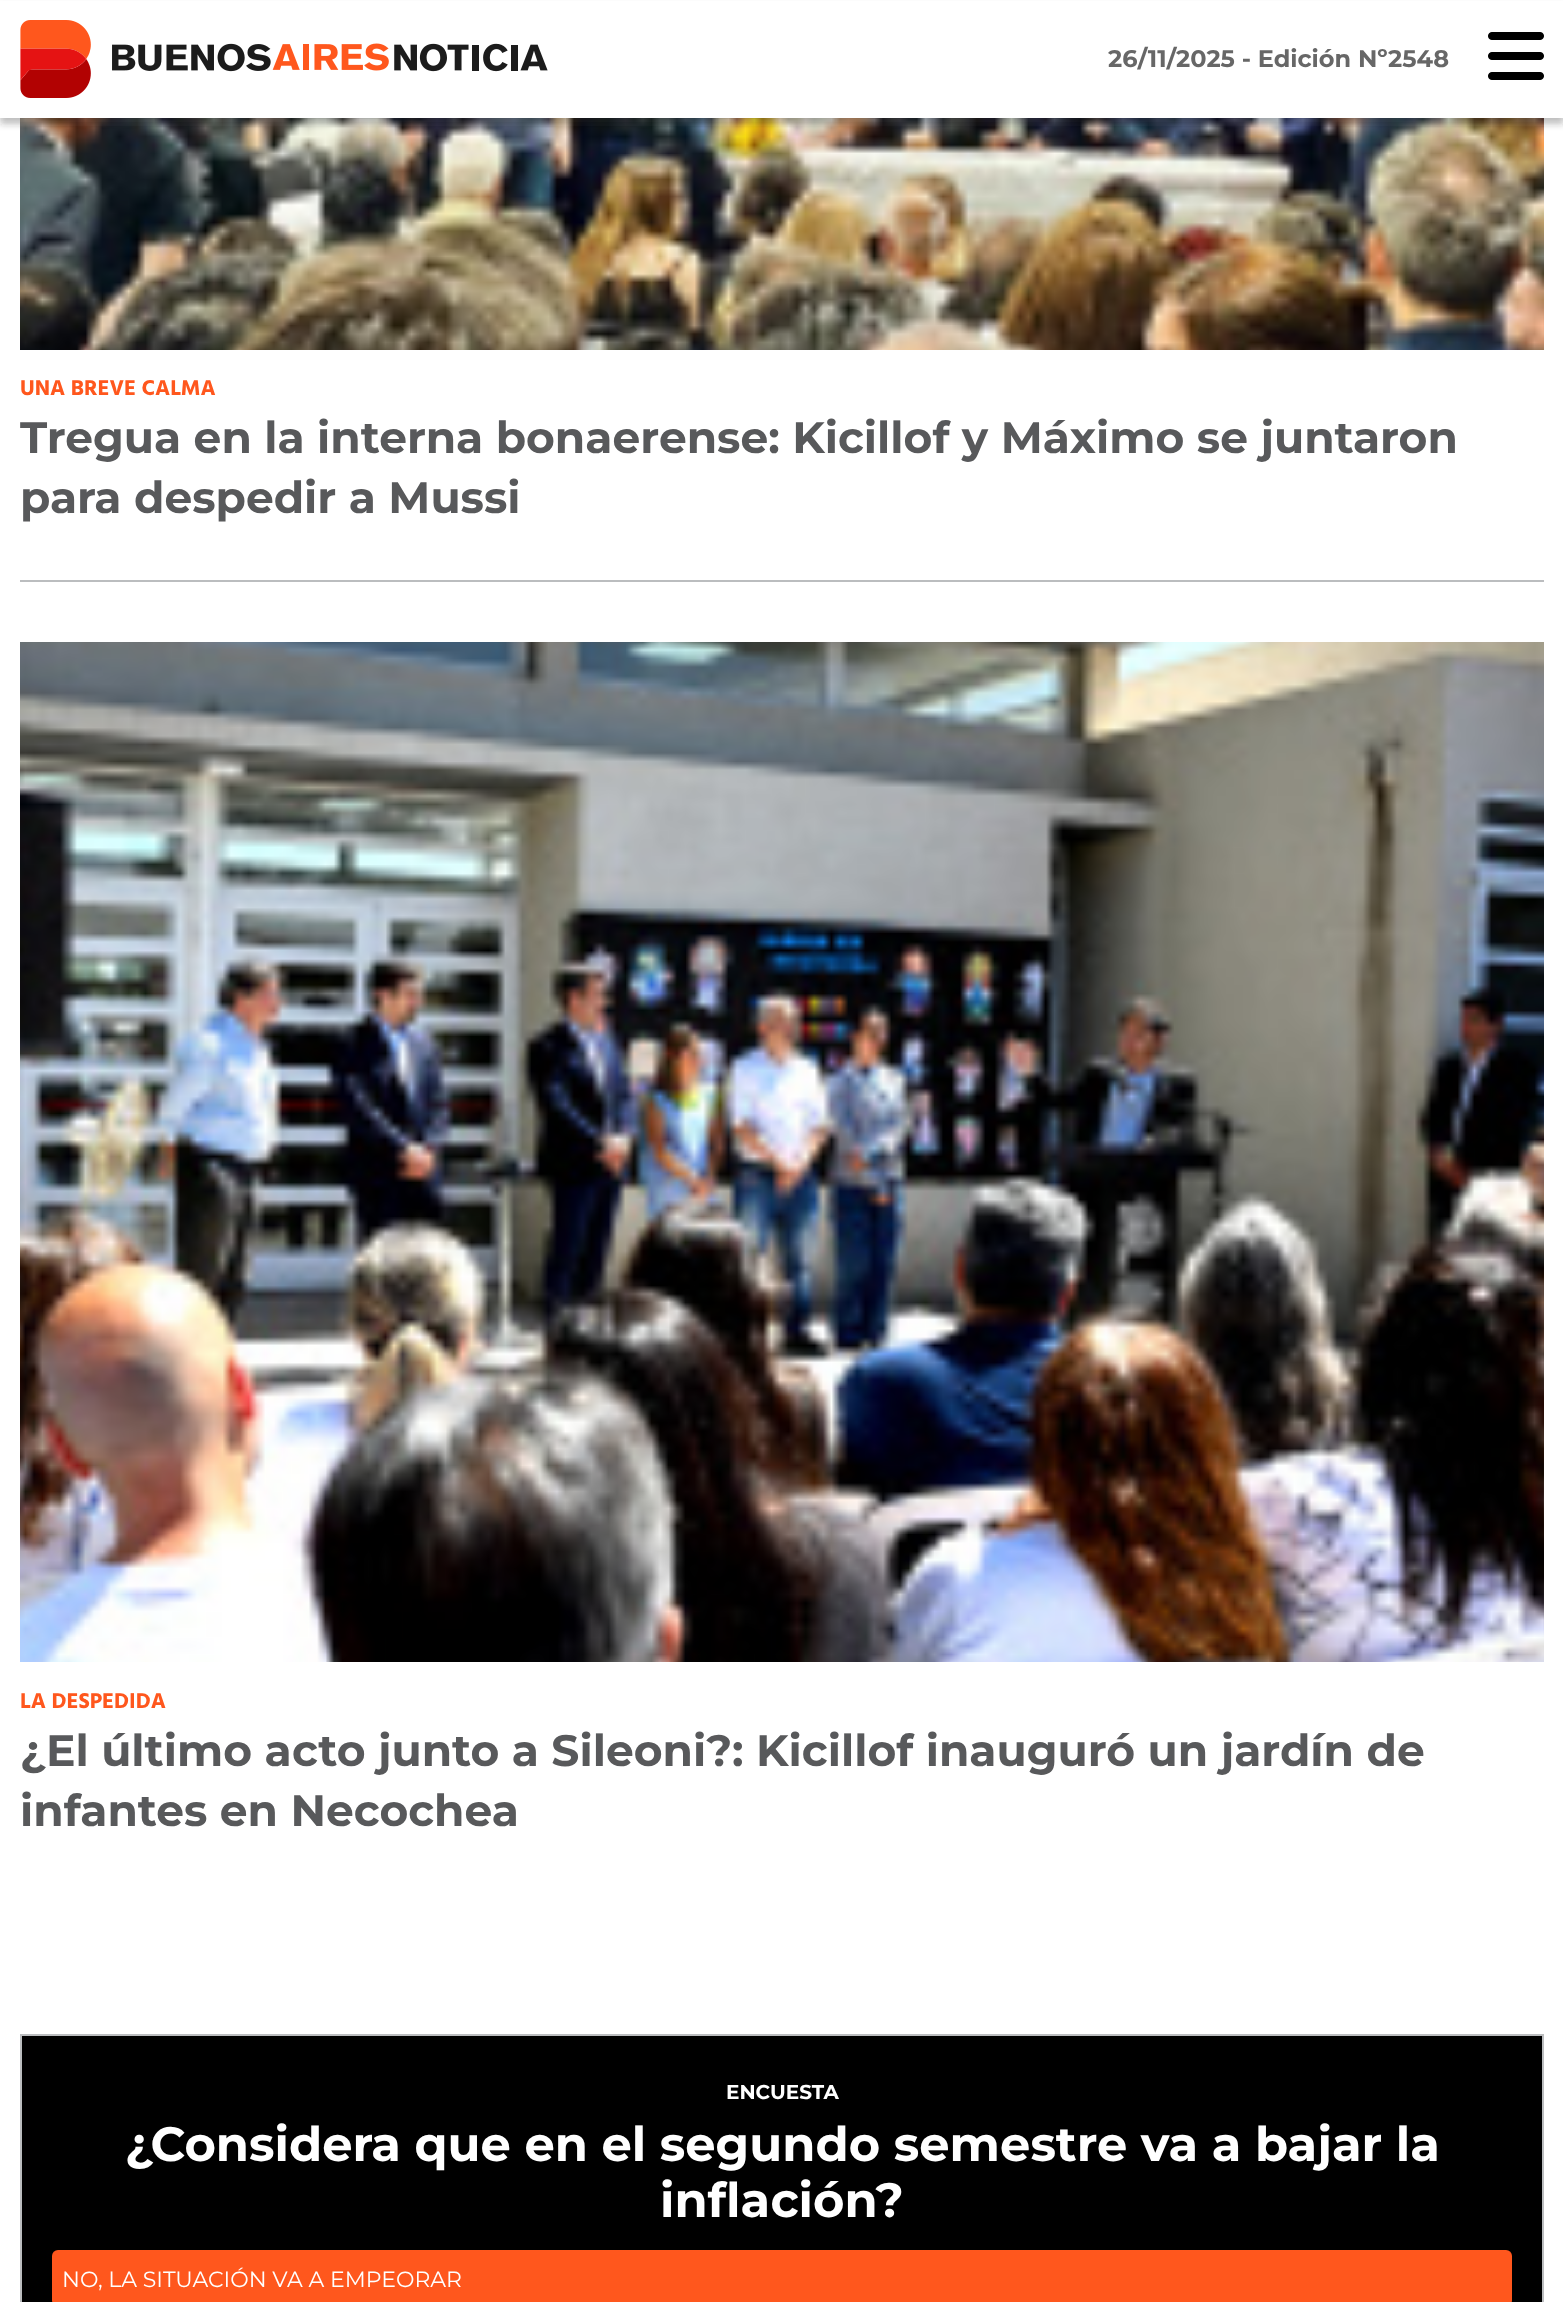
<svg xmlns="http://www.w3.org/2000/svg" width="1563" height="2302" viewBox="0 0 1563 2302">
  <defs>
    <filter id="blur1" x="-50%" y="-200%" width="200%" height="500%"><feGaussianBlur stdDeviation="3"/></filter>
  </defs>
  <rect width="100%" height="100%" fill="#ffffff"/>
  <image x="20" y="118" width="1524" height="232" href="img3.png"/>
  <rect x="0" y="6" width="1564" height="118" fill="#323232" fill-opacity="0.3" filter="url(#blur1)"/>
  <rect x="0" y="1" width="1563" height="117" fill="#ffffff"/>
  <image x="20" y="20" width="528" height="78" href="img1.png"/>
  <text x="1108" y="67" font-family="Montserrat" font-size="24" font-weight="bold" fill="#676767">26/11/2025 - Edición Nº2548</text>
  <image x="1488" y="32" width="56" height="48" href="img2.png"/>
  <rect x="20" y="580" width="1524" height="2" fill="#bbbdbf"/>
  <text x="20" y="395" font-family="Hind" font-size="22" font-weight="bold" fill="#ff571d">UNA BREVE CALMA</text>
  <text x="20" y="453" font-family="Montserrat" font-size="44" font-weight="bold" fill="#58595b">Tregua en la interna bonaerense: Kicillof y Máximo se juntaron</text>
  <text x="20" y="513" font-family="Montserrat" font-size="44" font-weight="bold" fill="#58595b">para despedir a Mussi</text>
  <image x="20" y="642" width="1524" height="1020" href="img4.png"/>
  <text x="20" y="1708" font-family="Hind" font-size="22" font-weight="bold" fill="#ff571d">LA DESPEDIDA</text>
  <text x="20" y="1766" font-family="Montserrat" font-size="44" font-weight="bold" fill="#58595b">¿El último acto junto a Sileoni?: Kicillof inauguró un jardín de</text>
  <text x="20" y="1826" font-family="Montserrat" font-size="44" font-weight="bold" fill="#58595b">infantes en Necochea</text>
  <rect x="21" y="2035" width="1522" height="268" fill="#000000" stroke="#bbbdbf" stroke-width="2"/>
  <text x="726" y="2099" font-family="Montserrat" font-size="20" font-weight="bold" fill="#ffffff">ENCUESTA</text>
  <text x="125" y="2161" font-family="Montserrat" font-size="48" font-weight="bold" fill="#ffffff">¿Considera que en el segundo semestre va a bajar la</text>
  <text x="660" y="2217" font-family="Montserrat" font-size="48" font-weight="bold" fill="#ffffff">inflación?</text>
  <rect x="52" y="2250" width="1460" height="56" rx="6" fill="#ff571d"/>
  <text x="62" y="2287" font-family="Montserrat" font-size="22" fill="#ffffff">NO, LA SITUACIÓN VA A EMPEORAR</text>
</svg>
